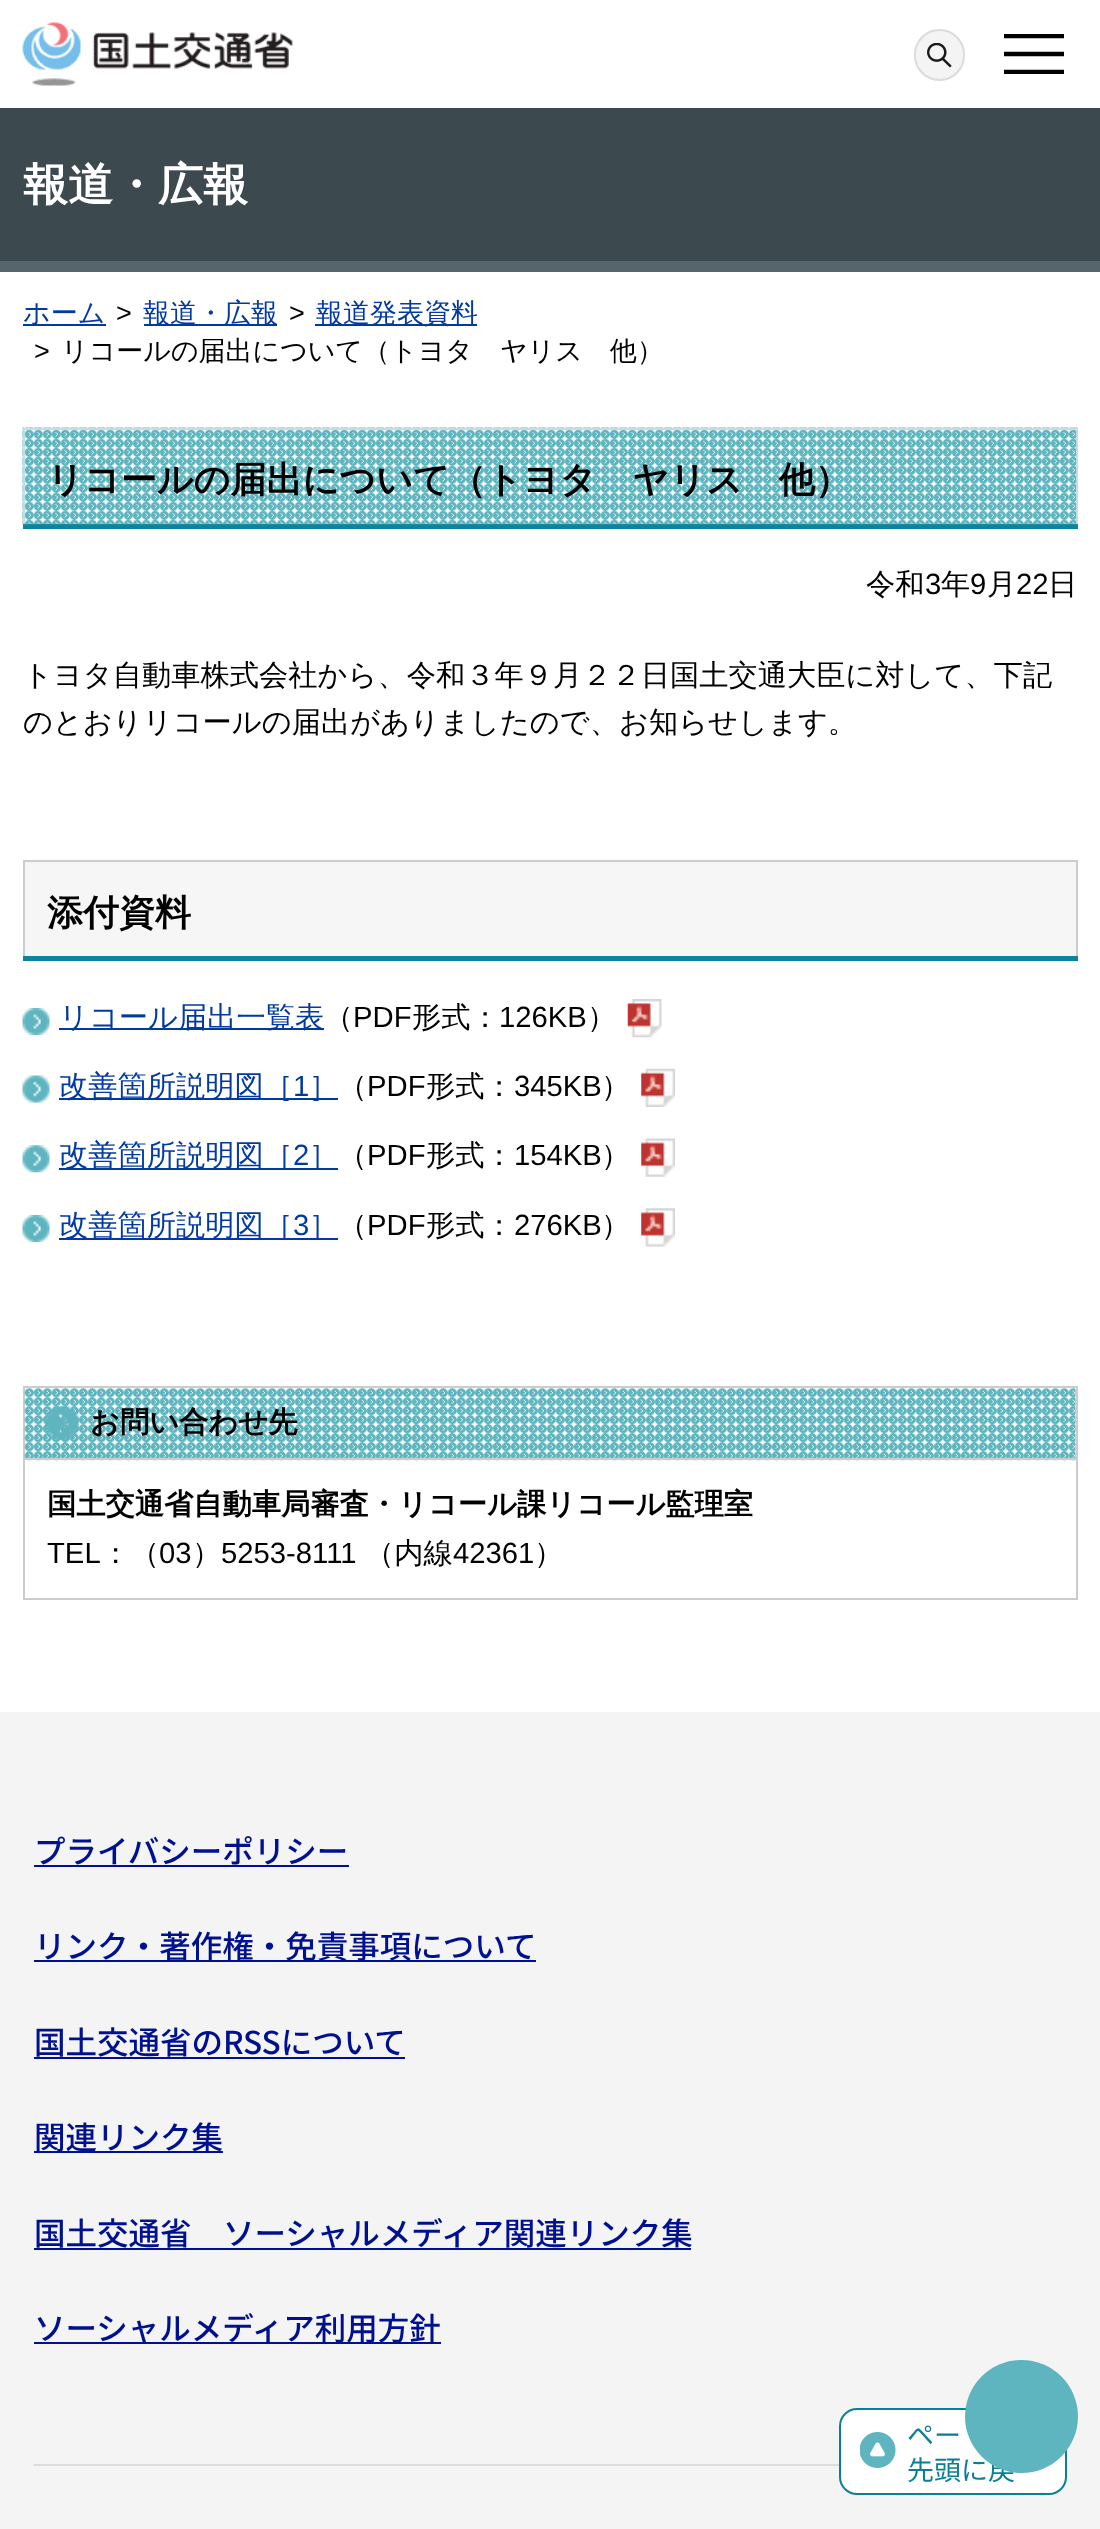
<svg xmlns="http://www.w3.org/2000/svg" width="1100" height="2529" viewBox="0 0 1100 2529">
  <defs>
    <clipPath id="clip1"><rect x="1004" y="34" width="60" height="40"/></clipPath>
  </defs>
  <rect width="100%" height="100%" fill="#ffffff"/>
  <image x="22" y="22" width="271" height="64" href="img1.png"/>
  <rect x="914" y="29" width="51" height="52" rx="25.5" fill="#f4f4f4"/>
  <image x="927" y="43" width="25" height="25" href="img2.png"/>
  <rect x="915" y="30" width="49" height="50" rx="24.5" fill="none" stroke="#dcdcdc" stroke-width="2"/>
  <g clip-path="url(#clip1)">
    <path d="M1003.5 36H1064M1003.5 54H1064M1003.5 72H1064" fill="none" stroke="#000000" stroke-width="4.5"/>
  </g>
  <rect x="0" y="108" width="1100" height="153" fill="#3c494f"/>
  <rect x="0" y="261" width="1100" height="11" fill="#56646b"/>
  <text x="23" y="200" font-family="WenQuanYi Zen Hei" font-size="45" font-weight="bold" fill="#ffffff">報道・広報</text>
  <rect x="23" y="324" width="83" height="2" fill="#013aa2"/>
  <text x="23" y="322" font-family="WenQuanYi Zen Hei" font-size="27" font-weight="500" fill="#013aa2">ホーム</text>
  <text x="116" y="322" font-family="Liberation Sans" font-size="27" fill="#000000">&gt;</text>
  <rect x="144" y="324" width="133" height="2" fill="#013aa2"/>
  <text x="143" y="322" font-family="WenQuanYi Zen Hei" font-size="27" font-weight="500" fill="#013aa2">報道・広報</text>
  <text x="289" y="322" font-family="Liberation Sans" font-size="27" fill="#000000">&gt;</text>
  <rect x="315" y="324" width="162" height="2" fill="#013aa2"/>
  <text x="316" y="322" font-family="WenQuanYi Zen Hei" font-size="27" font-weight="500" fill="#013aa2">報道発表資料</text>
  <text x="34" y="360" font-family="Liberation Sans" font-size="27" fill="#000000">&gt;</text>
  <text x="61" y="360" font-family="WenQuanYi Zen Hei" font-size="27" font-weight="500" fill="#000000">リコールの届出について（トヨタ　ヤリス　他）</text>
  <rect x="23" y="524" width="1055" height="5" fill="#0d849d"/>
  <image x="22" y="427" width="1056" height="98" href="img3.png"/>
  <rect x="23" y="428" width="1055" height="2" fill="#c6dce0"/>
  <rect x="1076" y="428" width="2" height="96" fill="#c6dce0"/>
  <rect x="23" y="428" width="2" height="96" fill="#c6dce0"/>
  <text x="47" y="492" font-family="WenQuanYi Zen Hei" font-size="36" font-weight="bold" fill="#000000">リコールの届出について（トヨタ　ヤリス　他）</text>
  <text x="866" y="594" font-family="WenQuanYi Zen Hei" font-size="29.25" font-weight="500" fill="#000000">令和</text>
  <text x="925" y="594" font-family="Liberation Sans" font-size="29.25" fill="#000000">3</text>
  <text x="941" y="594" font-family="WenQuanYi Zen Hei" font-size="29.25" font-weight="500" fill="#000000">年</text>
  <text x="970" y="594" font-family="Liberation Sans" font-size="29.25" fill="#000000">9</text>
  <text x="987" y="594" font-family="WenQuanYi Zen Hei" font-size="29.25" font-weight="500" fill="#000000">月</text>
  <text x="1016" y="594" font-family="Liberation Sans" font-size="29.25" fill="#000000">22</text>
  <text x="1048" y="594" font-family="WenQuanYi Zen Hei" font-size="29.25" font-weight="500" fill="#000000">日</text>
  <text x="23" y="685" font-family="WenQuanYi Zen Hei" font-size="29.25" font-weight="500" fill="#000000">トヨタ自動車株式会社から、令和３年９月２２日国土交通大臣に対して、下記</text>
  <text x="23" y="732" font-family="WenQuanYi Zen Hei" font-size="29.25" font-weight="500" fill="#000000">のとおりリコールの届出がありましたので、お知らせします。</text>
  <rect x="23" y="956" width="1055" height="5" fill="#0d849d"/>
  <rect x="25" y="862" width="1051" height="94" fill="#f6f6f6"/>
  <rect x="23" y="860" width="1055" height="2" fill="#cccccc"/>
  <rect x="1076" y="860" width="2" height="96" fill="#cccccc"/>
  <rect x="23" y="860" width="2" height="96" fill="#cccccc"/>
  <text x="47" y="925" font-family="WenQuanYi Zen Hei" font-size="36" font-weight="bold" fill="#000000">添付資料</text>
  <image x="22" y="1008" width="28" height="27" href="img4.png"/>
  <rect x="59" y="1028" width="265" height="2" fill="#013aa2"/>
  <text x="59" y="1027" font-family="WenQuanYi Zen Hei" font-size="29.25" font-weight="500" fill="#013aa2">リコール届出一覧表</text>
  <text x="324" y="1027" font-family="WenQuanYi Zen Hei" font-size="29.25" font-weight="500" fill="#000000">（</text>
  <text x="353" y="1027" font-family="Liberation Sans" font-size="29.25" fill="#000000">PDF</text>
  <text x="412" y="1027" font-family="WenQuanYi Zen Hei" font-size="29.25" font-weight="500" fill="#000000">形式：</text>
  <text x="499" y="1027" font-family="Liberation Sans" font-size="29.25" fill="#000000">126KB</text>
  <text x="587" y="1027" font-family="WenQuanYi Zen Hei" font-size="29.25" font-weight="500" fill="#000000">）</text>
  <image x="627" y="999" width="35" height="39" href="img5.png"/>
  <image x="22" y="1075" width="28" height="28" href="img6.png"/>
  <rect x="59" y="1098" width="279" height="2" fill="#013aa2"/>
  <text x="59" y="1096" font-family="WenQuanYi Zen Hei" font-size="29.25" font-weight="500" fill="#013aa2">改善箇所説明図［</text>
  <text x="293" y="1096" font-family="Liberation Sans" font-size="29.25" fill="#013aa2">1</text>
  <text x="309" y="1096" font-family="WenQuanYi Zen Hei" font-size="29.25" font-weight="500" fill="#013aa2">］</text>
  <text x="338" y="1096" font-family="WenQuanYi Zen Hei" font-size="29.25" font-weight="500" fill="#000000">（</text>
  <text x="367" y="1096" font-family="Liberation Sans" font-size="29.25" fill="#000000">PDF</text>
  <text x="426" y="1096" font-family="WenQuanYi Zen Hei" font-size="29.25" font-weight="500" fill="#000000">形式：</text>
  <text x="514" y="1096" font-family="Liberation Sans" font-size="29.25" fill="#000000">345KB</text>
  <text x="601" y="1096" font-family="WenQuanYi Zen Hei" font-size="29.25" font-weight="500" fill="#000000">）</text>
  <image x="641" y="1068" width="34" height="39" href="img7.png"/>
  <image x="22" y="1145" width="28" height="28" href="img8.png"/>
  <rect x="59" y="1168" width="279" height="2" fill="#013aa2"/>
  <text x="59" y="1165" font-family="WenQuanYi Zen Hei" font-size="29.25" font-weight="500" fill="#013aa2">改善箇所説明図［</text>
  <text x="293" y="1165" font-family="Liberation Sans" font-size="29.25" fill="#013aa2">2</text>
  <text x="309" y="1165" font-family="WenQuanYi Zen Hei" font-size="29.25" font-weight="500" fill="#013aa2">］</text>
  <text x="338" y="1165" font-family="WenQuanYi Zen Hei" font-size="29.25" font-weight="500" fill="#000000">（</text>
  <text x="367" y="1165" font-family="Liberation Sans" font-size="29.25" fill="#000000">PDF</text>
  <text x="426" y="1165" font-family="WenQuanYi Zen Hei" font-size="29.25" font-weight="500" fill="#000000">形式：</text>
  <text x="514" y="1165" font-family="Liberation Sans" font-size="29.25" fill="#000000">154KB</text>
  <text x="601" y="1165" font-family="WenQuanYi Zen Hei" font-size="29.25" font-weight="500" fill="#000000">）</text>
  <image x="641" y="1138" width="34" height="39" href="img9.png"/>
  <image x="22" y="1215" width="28" height="27" href="img4.png"/>
  <rect x="59" y="1238" width="279" height="2" fill="#013aa2"/>
  <text x="59" y="1235" font-family="WenQuanYi Zen Hei" font-size="29.25" font-weight="500" fill="#013aa2">改善箇所説明図［</text>
  <text x="293" y="1235" font-family="Liberation Sans" font-size="29.25" fill="#013aa2">3</text>
  <text x="309" y="1235" font-family="WenQuanYi Zen Hei" font-size="29.25" font-weight="500" fill="#013aa2">］</text>
  <text x="338" y="1235" font-family="WenQuanYi Zen Hei" font-size="29.25" font-weight="500" fill="#000000">（</text>
  <text x="367" y="1235" font-family="Liberation Sans" font-size="29.25" fill="#000000">PDF</text>
  <text x="426" y="1235" font-family="WenQuanYi Zen Hei" font-size="29.25" font-weight="500" fill="#000000">形式：</text>
  <text x="514" y="1235" font-family="Liberation Sans" font-size="29.25" fill="#000000">276KB</text>
  <text x="601" y="1235" font-family="WenQuanYi Zen Hei" font-size="29.25" font-weight="500" fill="#000000">）</text>
  <image x="641" y="1208" width="34" height="39" href="img10.png"/>
  <rect x="24" y="1387" width="1053" height="212" fill="none" stroke="#cccccc" stroke-width="2"/>
  <image x="24" y="1388" width="1052" height="73" href="img11.png"/>
  <rect x="25" y="1458" width="1051" height="2" fill="#cccccc"/>
  <image x="45" y="1406" width="34" height="34" href="img12.png"/>
  <text x="90" y="1432" font-family="WenQuanYi Zen Hei" font-size="29.25" font-weight="bold" fill="#000000">お問い合わせ先</text>
  <text x="47" y="1514" font-family="WenQuanYi Zen Hei" font-size="29.25" font-weight="bold" fill="#000000">国土交通省自動車局審査・リコール課リコール監理室</text>
  <text x="47" y="1563" font-family="Liberation Sans" font-size="29.25" fill="#000000">TEL</text>
  <text x="101" y="1563" font-family="WenQuanYi Zen Hei" font-size="29.25" font-weight="500" fill="#000000">：（</text>
  <text x="159" y="1563" font-family="Liberation Sans" font-size="29.25" fill="#000000">03</text>
  <text x="192" y="1563" font-family="WenQuanYi Zen Hei" font-size="29.25" font-weight="500" fill="#000000">）</text>
  <text x="221" y="1563" font-family="Liberation Sans" font-size="29.25" fill="#000000">5253-8111</text>
  <text x="365" y="1563" font-family="WenQuanYi Zen Hei" font-size="29.25" font-weight="500" fill="#000000">（内線</text>
  <text x="453" y="1563" font-family="Liberation Sans" font-size="29.25" fill="#000000">42361</text>
  <text x="534" y="1563" font-family="WenQuanYi Zen Hei" font-size="29.25" font-weight="500" fill="#000000">）</text>
  <rect x="0" y="1712" width="1100" height="817" fill="#f4f4f4"/>
  <rect x="839" y="2408" width="228" height="87" rx="18" fill="#ffffff"/>
  <image x="860" y="2432" width="36" height="36" href="img13.png"/>
  <rect x="840" y="2409" width="226" height="85" rx="17" fill="none" stroke="#0b7f96" stroke-width="2"/>
  <text x="907" y="2480" font-family="Noto Sans JP" font-size="27" fill="#0b7f96">先頭に戻</text>
  <circle cx="1021.5" cy="2416.5" r="56.5" fill="#5eb5c0"/>
  <rect x="34" y="2464" width="805" height="2" fill="#dcdcdc"/>
  <text x="34" y="1863" font-family="Noto Sans JP" font-size="31.5" font-weight="500" fill="#00118f">プライバシーポリシー</text>
  <rect x="34" y="1865" width="315" height="2" fill="#00118f"/>
  <rect x="34" y="1960" width="502" height="2" fill="#00118f"/>
  <text x="34" y="1958" font-family="Noto Sans JP" font-size="31.5" font-weight="500" fill="#00118f">リンク・著作権・免責事項について</text>
  <text x="34" y="2054" font-family="Noto Sans JP" font-size="31.5" font-weight="500" fill="#00118f">国土交通省のRSSについて</text>
  <rect x="34" y="2057" width="371" height="2" fill="#00118f"/>
  <rect x="34" y="2151" width="189" height="2" fill="#00118f"/>
  <text x="34" y="2149" font-family="Noto Sans JP" font-size="31.5" font-weight="500" fill="#00118f">関連リンク集</text>
  <text x="34" y="2245" font-family="Noto Sans JP" font-size="31.5" font-weight="500" fill="#00118f">国土交通省　ソーシャルメディア関連リンク集</text>
  <rect x="34" y="2248" width="657" height="2" fill="#00118f"/>
  <rect x="34" y="2342" width="407" height="2" fill="#00118f"/>
  <text x="34" y="2340" font-family="Noto Sans JP" font-size="31.5" font-weight="500" fill="#00118f">ソーシャルメディア利用方針</text>
  <text x="907" y="2445" font-family="Noto Sans JP" font-size="27" fill="#0b7f96">ペー</text>
</svg>
